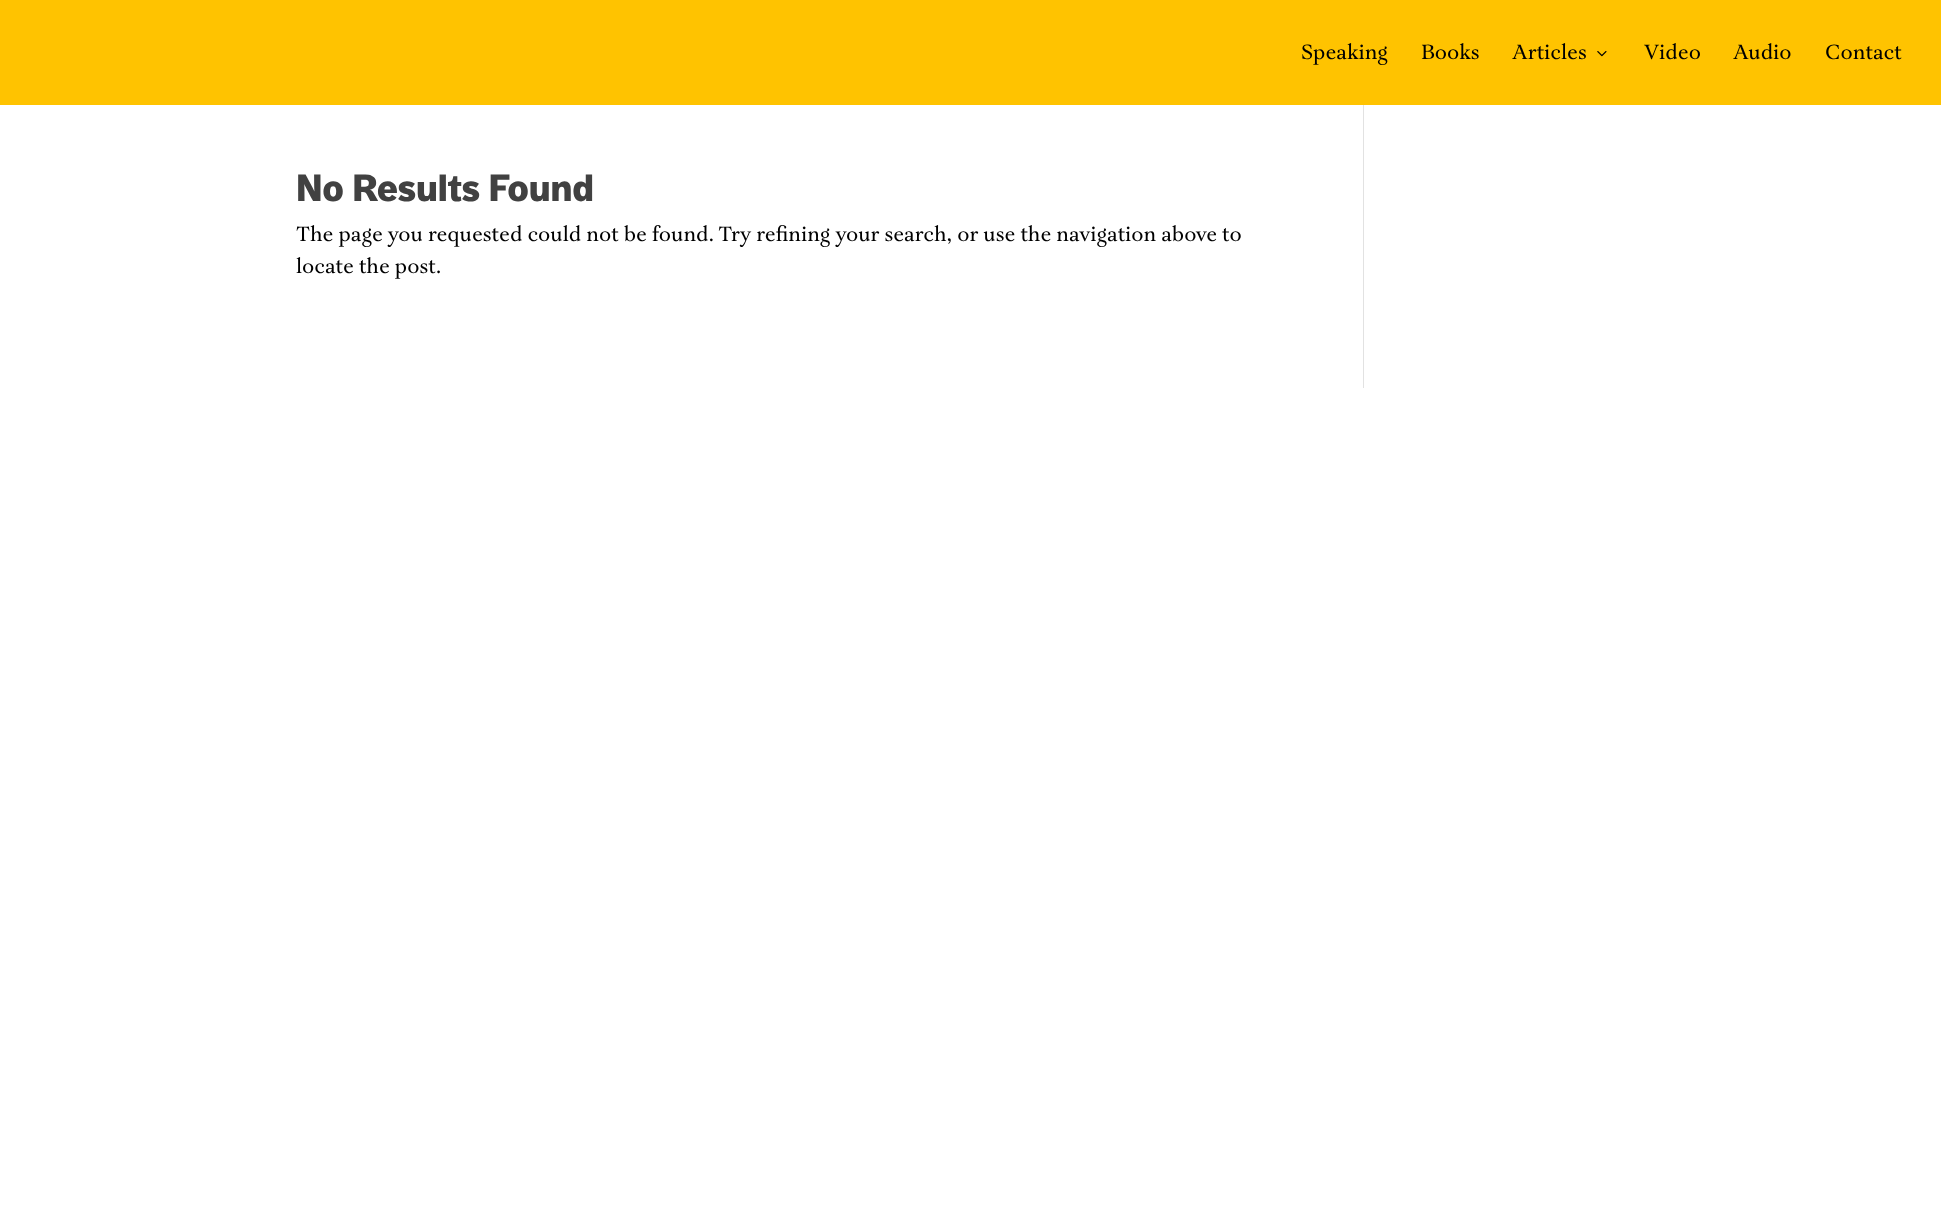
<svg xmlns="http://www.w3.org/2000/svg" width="1941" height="1232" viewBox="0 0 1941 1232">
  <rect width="100%" height="100%" fill="#ffffff"/>
  <rect x="1363" y="98" width="1" height="290" fill="#e2e2e2"/>
  <rect x="0" y="0" width="1941" height="105" fill="#ffc300"/>
  <text x="1301" y="59" font-family="'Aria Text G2'" font-size="21.25" fill="#000000">Speaking</text>
  <text x="1421" y="59" font-family="'Aria Text G2'" font-size="21.25" fill="#000000">Books</text>
  <text x="1512" y="59" font-family="'Aria Text G2'" font-size="21.25" fill="#000000">Articles</text>
  <image x="1597" y="51" width="10" height="6" href="img1.png"/>
  <text x="1644" y="59" font-family="'Aria Text G2'" font-size="21.25" fill="#000000">Video</text>
  <text x="1733" y="59" font-family="'Aria Text G2'" font-size="21.25" fill="#000000">Audio</text>
  <text x="1825" y="59" font-family="'Aria Text G2'" font-size="21.25" fill="#000000">Contact</text>
  <text x="296" y="201" font-family="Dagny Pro" font-size="37.5" font-weight="900" fill="#414141">No Results Found</text>
  <text x="296" y="241" font-family="'Aria Text G2'" font-size="21.25" fill="#000000">The page you requested could not be found. Try refining your search, or use the navigation above to</text>
  <text x="296" y="273" font-family="'Aria Text G2'" font-size="21.25" fill="#000000">locate the post.</text>
</svg>
